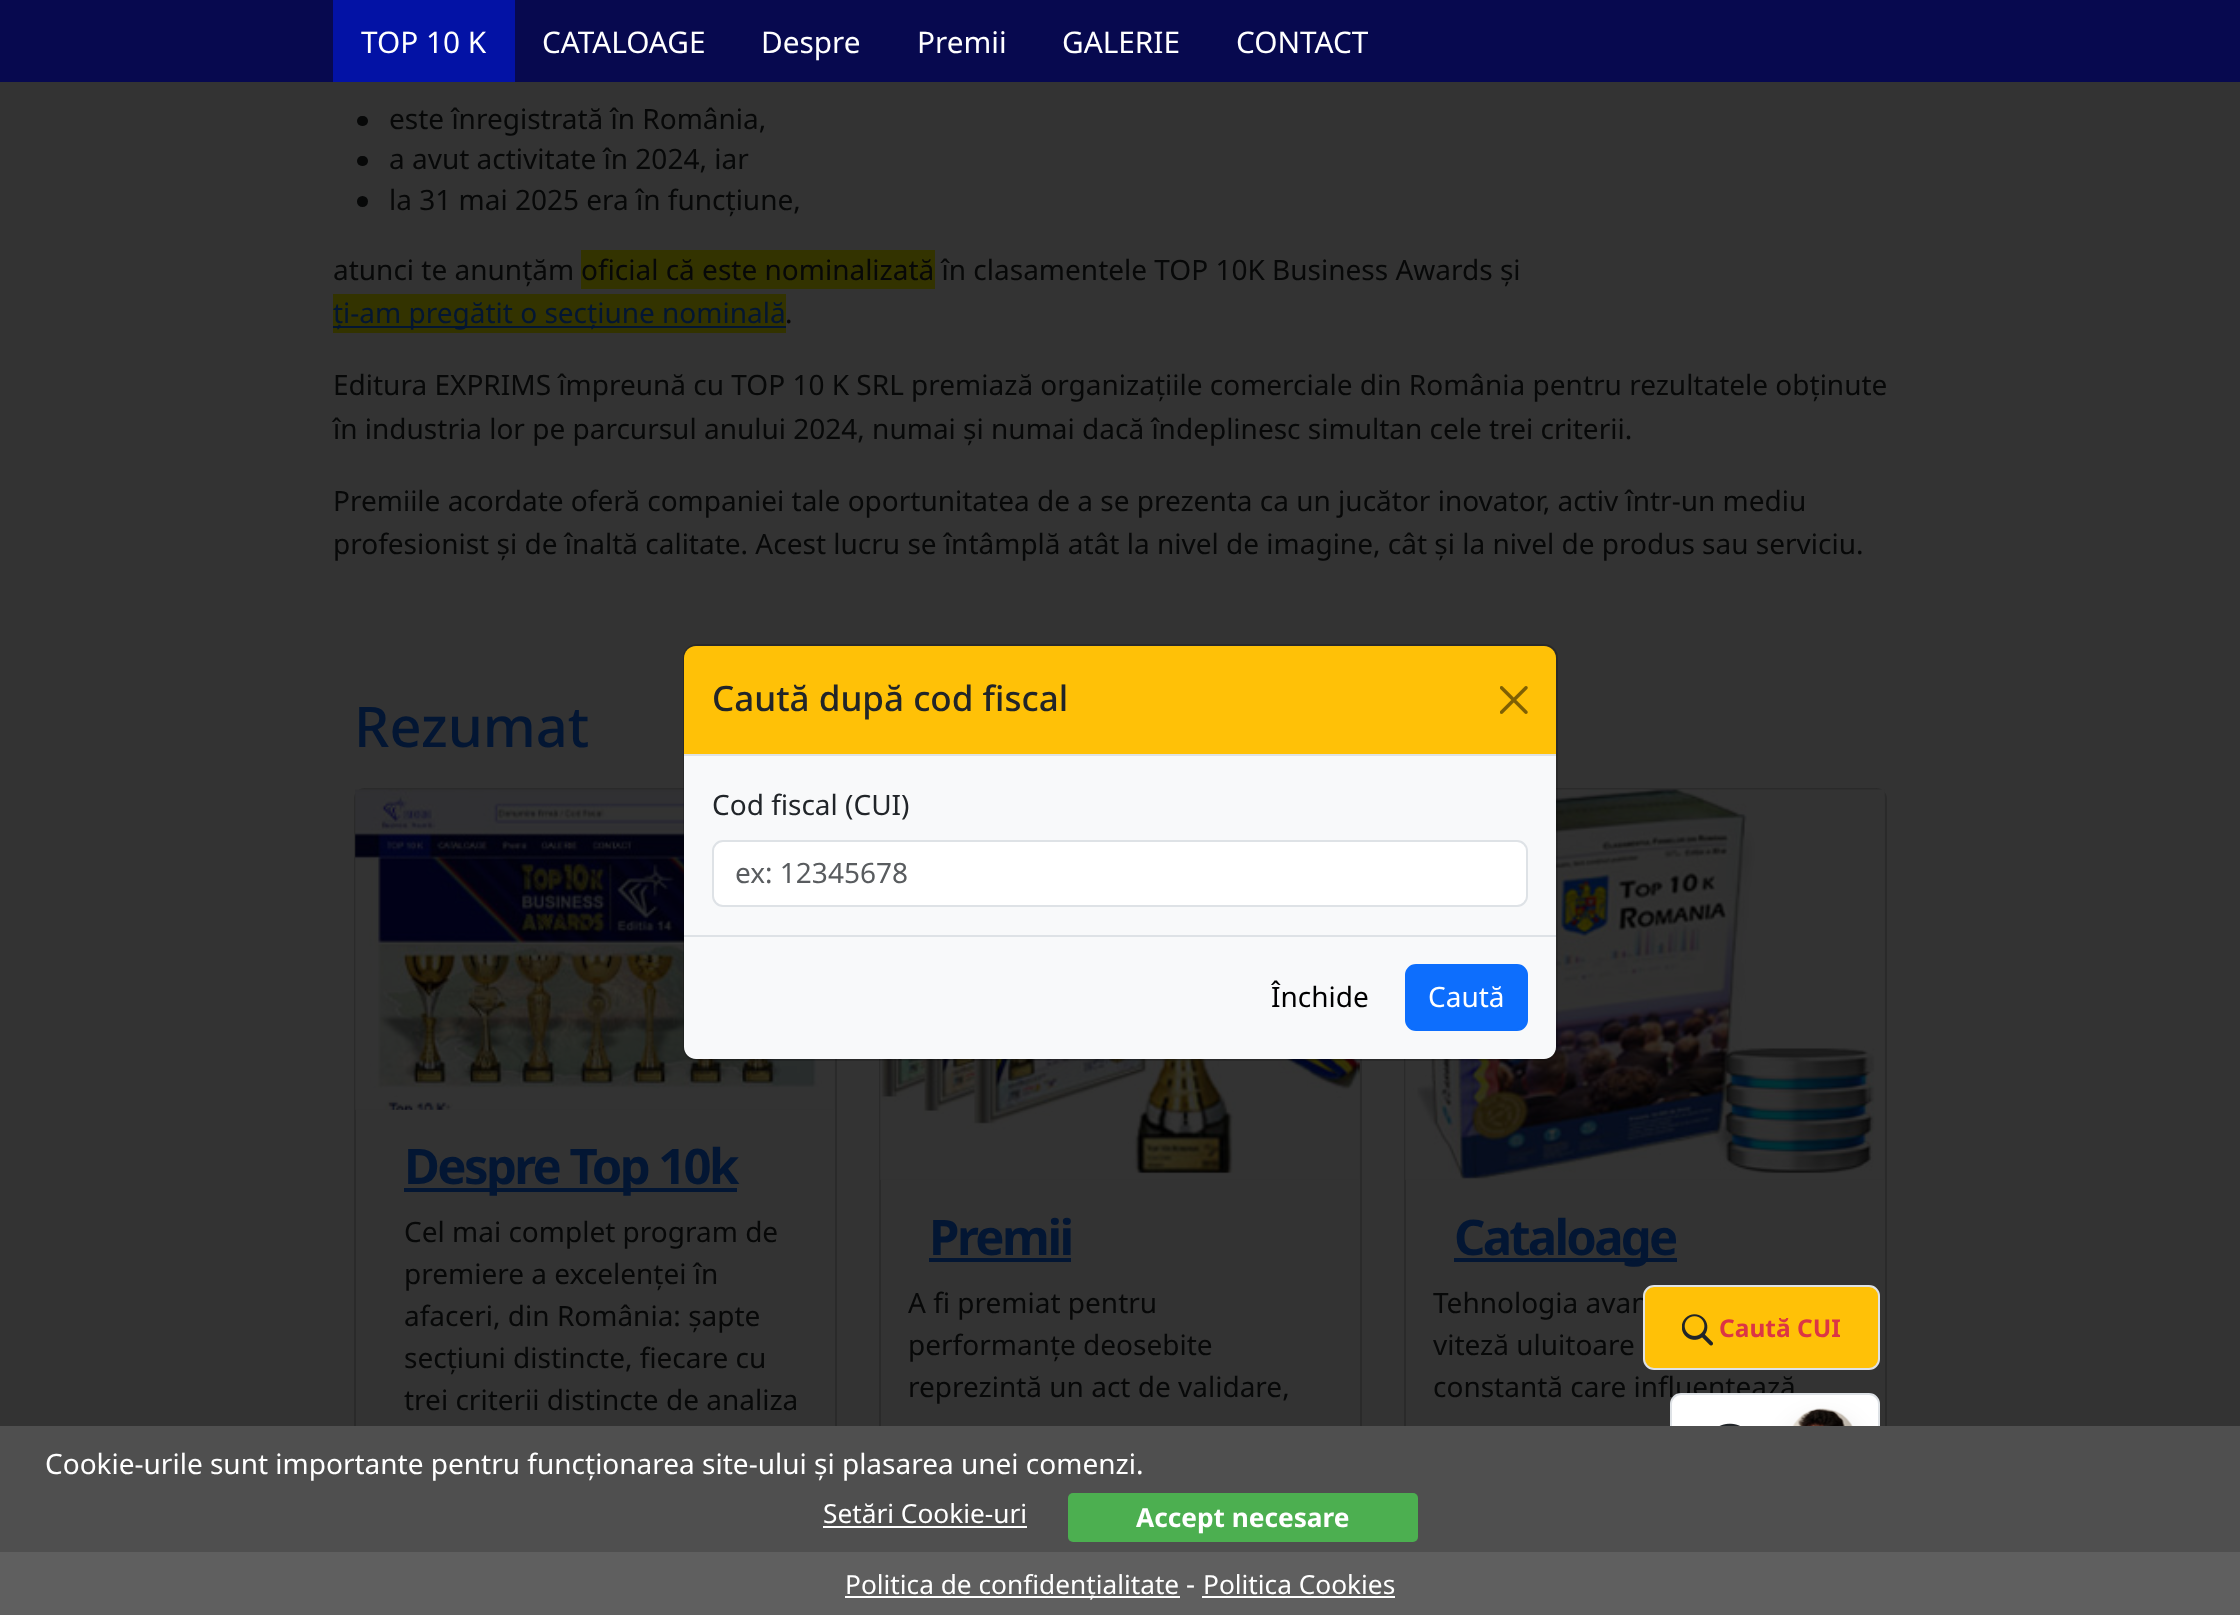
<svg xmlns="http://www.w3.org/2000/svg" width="2240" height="1615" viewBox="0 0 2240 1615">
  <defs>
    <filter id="blur1" x="-50%" y="-200%" width="200%" height="500%"><feGaussianBlur stdDeviation="14"/></filter>
  </defs>
  <rect width="100%" height="100%" fill="#333333"/>
  <rect x="0" y="0" width="2240" height="82" fill="#07094f"/>
  <rect x="333" y="0" width="182" height="82" fill="#0312a5"/>
  <text x="361" y="53" font-family="Noto Sans" font-size="29.75" fill="#ffffff">TOP 10 K</text>
  <text x="542" y="53" font-family="Noto Sans" font-size="29.75" fill="#ffffff">CATALOAGE</text>
  <text x="761" y="53" font-family="Noto Sans" font-size="29.75" fill="#ffffff">Despre</text>
  <text x="917" y="53" font-family="Noto Sans" font-size="29.75" fill="#ffffff">Premii</text>
  <text x="1062" y="53" font-family="Noto Sans" font-size="29.75" fill="#ffffff">GALERIE</text>
  <text x="1236" y="53" font-family="Noto Sans" font-size="29.75" fill="#ffffff">CONTACT</text>
  <rect x="357" y="116" width="11" height="10" rx="5" fill="#070808"/>
  <text x="389" y="129" font-family="Noto Sans" font-size="28" fill="#070808">este înregistrată în România,</text>
  <rect x="357" y="156" width="11" height="10" rx="5" fill="#070808"/>
  <text x="389" y="169" font-family="Noto Sans" font-size="28" fill="#070808">a avut activitate în 2024, iar</text>
  <circle cx="362.5" cy="201.5" r="5.5" fill="#070808"/>
  <text x="389" y="210" font-family="Noto Sans" font-size="28" fill="#070808">la 31 mai 2025 era în funcțiune,</text>
  <text x="333" y="280" font-family="Noto Sans" font-size="28" fill="#070808">atunci te anunțăm</text>
  <rect x="581" y="250" width="354" height="39" fill="#333300"/>
  <text x="581" y="280" font-family="Noto Sans" font-size="28" fill="#070808">oficial că este nominalizată în clasamentele TOP 10K Business Awards și</text>
  <rect x="333" y="294" width="453" height="39" fill="#333300"/>
  <rect x="333" y="326" width="453" height="2" fill="#031633"/>
  <text x="333" y="323" font-family="Noto Sans" font-size="28" fill="#031633">ți-am pregătit o secțiune nominală</text>
  <text x="785" y="323" font-family="Noto Sans" font-size="28" fill="#070808">.</text>
  <text x="333" y="395" font-family="Noto Sans" font-size="28" fill="#070808">Editura EXPRIMS împreună cu TOP 10 K SRL premiază organizațiile comerciale din România pentru rezultatele obținute</text>
  <text x="333" y="439" font-family="Noto Sans" font-size="28" fill="#070808">în industria lor pe parcursul anului 2024, numai și numai dacă îndeplinesc simultan cele trei criterii.</text>
  <text x="333" y="511" font-family="Noto Sans" font-size="28" fill="#070808">Premiile acordate oferă companiei tale oportunitatea de a se prezenta ca un jucător inovator, activ într-un mediu</text>
  <text x="333" y="554" font-family="Noto Sans" font-size="28" fill="#070808">profesionist și de înaltă calitate. Acest lucru se întâmplă atât la nivel de imagine, cât și la nivel de produs sau serviciu.</text>
  <text x="354" y="747" font-family="Noto Sans" font-size="56" font-weight="500" fill="#031633">Rezumat</text>
  <rect x="355" y="789" width="481" height="825" rx="10" fill="none" stroke="#2a2a2a" stroke-width="2"/>
  <image x="355" y="789" width="480" height="321" href="img1.png"/>
  <rect x="404" y="1188" width="333" height="4" fill="#031633"/>
  <text x="404" y="1184" font-family="Noto Sans" font-size="49" font-weight="bold" letter-spacing="-2.6" fill="#031633">Despre Top 10k</text>
  <text x="404" y="1242" font-family="Noto Sans" font-size="28" fill="#070808">Cel mai complet program de</text>
  <text x="404" y="1284" font-family="Noto Sans" font-size="28" fill="#070808">premiere a excelenței în</text>
  <text x="404" y="1326" font-family="Noto Sans" font-size="28" fill="#070808">afaceri, din România: șapte</text>
  <text x="404" y="1368" font-family="Noto Sans" font-size="28" fill="#070808">secțiuni distincte, fiecare cu</text>
  <text x="404" y="1410" font-family="Noto Sans" font-size="28" fill="#070808">trei criterii distincte de analiza</text>
  <rect x="880" y="789" width="481" height="825" fill="none" stroke="#2a2a2a" stroke-width="2"/>
  <image x="880" y="1059" width="480" height="121" href="img2.png"/>
  <text x="929" y="1255" font-family="Noto Sans" font-size="49" font-weight="bold" letter-spacing="-2.5" fill="#031633">Premii</text>
  <rect x="929" y="1258" width="142" height="4" fill="#031633"/>
  <text x="908" y="1313" font-family="Noto Sans" font-size="28" fill="#070808">A fi premiat pentru</text>
  <text x="908" y="1355" font-family="Noto Sans" font-size="28" fill="#070808">performanțe deosebite</text>
  <text x="908" y="1397" font-family="Noto Sans" font-size="28" fill="#070808">reprezintă un act de validare,</text>
  <rect x="1405" y="789" width="481" height="825" rx="10" fill="none" stroke="#2a2a2a" stroke-width="2"/>
  <image x="1405" y="789" width="480" height="391" href="img3.png"/>
  <rect x="1454" y="1258" width="223" height="4" fill="#031633"/>
  <text x="1454" y="1255" font-family="Noto Sans" font-size="49" font-weight="bold" letter-spacing="-2.75" fill="#031633">Cataloage</text>
  <text x="1433" y="1313" font-family="Noto Sans" font-size="28" fill="#070808">Tehnologia avan</text>
  <text x="1433" y="1355" font-family="Noto Sans" font-size="28" fill="#070808">viteză uluitoare</text>
  <text x="1433" y="1397" font-family="Noto Sans" font-size="28" fill="#070808">constantă care influențează</text>
  <rect x="684" y="645" width="873" height="415" rx="13" fill="none" stroke="#000000" stroke-opacity="0.18" stroke-width="2"/>
  <path d="M696 646H1544C1550.5 646 1556 651.5 1556 658V756H684V658C684 651.5 689.5 646 696 646Z" fill="#ffc107"/>
  <rect x="684" y="754" width="872" height="2" fill="#dee2e6"/>
  <text x="712" y="711" font-family="Noto Sans" font-size="35" font-weight="500" fill="#212529">Caută după cod fiscal</text>
  <image x="1500" y="686" width="28" height="28" href="img4.png"/>
  <rect x="684" y="756" width="872" height="179" fill="#f8f9fa"/>
  <text x="712" y="815" font-family="Noto Sans" font-size="28" fill="#212529">Cod fiscal (CUI)</text>
  <rect x="713" y="841" width="814" height="65" rx="10" fill="#ffffff" stroke="#dee2e6" stroke-width="2"/>
  <text x="735" y="883" font-family="Noto Sans" font-size="28" fill="#595c5f">ex: 12345678</text>
  <path d="M684 935H1556V1047C1556 1053.5 1550.5 1059 1544 1059H696C689.5 1059 684 1053.5 684 1047Z" fill="#f8f9fa"/>
  <rect x="684" y="935" width="872" height="2" fill="#dee2e6"/>
  <text x="1271" y="1007" font-family="Noto Sans" font-size="28" fill="#000000">Închide</text>
  <rect x="1406" y="965" width="121" height="65" rx="10" fill="#0d6efd" stroke="#0d6efd" stroke-width="2"/>
  <text x="1428" y="1007" font-family="Noto Sans" font-size="28" fill="#ffffff">Caută</text>
  <rect x="1644" y="1286" width="235" height="83" rx="10" fill="#ffc107" stroke="#dee2e6" stroke-width="2"/>
  <image x="1682" y="1314" width="31" height="32" href="img5.png"/>
  <text x="1719" y="1337" font-family="Noto Sans" font-size="24.5" font-weight="bold" fill="#dc3545">Caută CUI</text>
  <rect x="1671" y="1394" width="208" height="98" rx="10" fill="#ffffff" stroke="#dee2e6" stroke-width="2"/>
  <rect x="1789" y="1423" width="68" height="68" rx="34" fill="#000000" fill-opacity="0.15" filter="url(#blur1)"/>
  <rect x="0" y="1426" width="2240" height="126" fill="#4f4f4f"/>
  <text x="45" y="1474" font-family="Noto Sans" font-size="28" fill="#ffffff">Cookie-urile sunt importante pentru funcționarea site-ului și plasarea unei comenzi.</text>
  <text x="823" y="1523" font-family="Noto Sans" font-size="26.25" fill="#ffffff">Setări Cookie-uri</text>
  <rect x="823" y="1526" width="204" height="2" fill="#ffffff"/>
  <rect x="1068" y="1493" width="350" height="49" rx="5" fill="#4caf50"/>
  <text x="1136" y="1527" font-family="Noto Sans" font-size="26.25" font-weight="bold" fill="#ffffff">Accept necesare</text>
  <rect x="0" y="1552" width="2240" height="63" fill="#5f5f5f"/>
  <rect x="845" y="1596" width="335" height="2" fill="#ffffff"/>
  <text x="845" y="1594" font-family="Noto Sans" font-size="26.25" fill="#ffffff">Politica de confidențialitate</text>
  <text x="1186" y="1594" font-family="Noto Sans" font-size="28" fill="#ffffff">-</text>
  <text x="1203" y="1594" font-family="Noto Sans" font-size="26.25" fill="#ffffff">Politica Cookies</text>
  <rect x="1202" y="1596" width="193" height="2" fill="#ffffff"/>
  <image x="1719" y="1423" width="21" height="3" href="img6.png"/>
  <image x="1792" y="1408" width="61" height="18" href="img7.png"/>
</svg>
